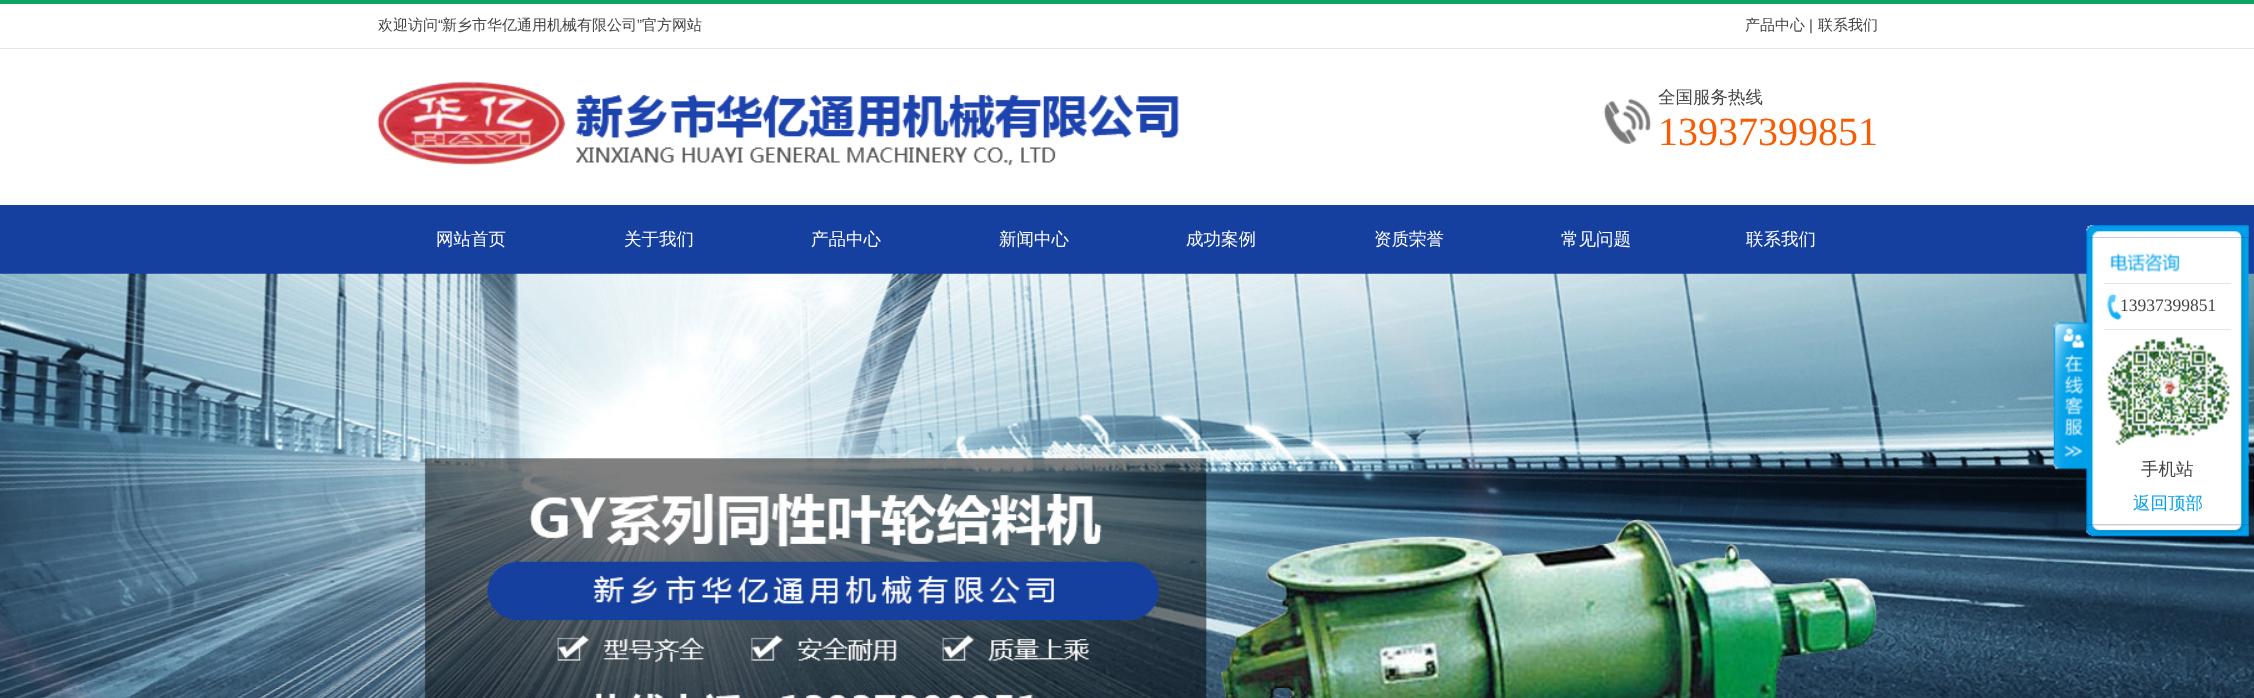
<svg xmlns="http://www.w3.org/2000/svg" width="2254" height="698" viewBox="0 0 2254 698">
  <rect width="100%" height="100%" fill="#ffffff"/>
  <rect x="0" y="0" width="2254" height="4" fill="#0ba461"/>
  <rect x="0" y="48" width="2254" height="1" fill="#e5e5e5"/>
  <text x="378" y="30" font-family="WenQuanYi Zen Hei" font-size="15" font-weight="500" fill="#444444">欢迎访问</text>
  <text x="438" y="30" font-family="Liberation Sans" font-size="15" fill="#444444">“</text>
  <text x="442" y="30" font-family="WenQuanYi Zen Hei" font-size="15" font-weight="500" fill="#444444">新乡市华亿通用机械有限公司</text>
  <text x="637" y="30" font-family="Liberation Sans" font-size="15" fill="#444444">”</text>
  <text x="642" y="30" font-family="WenQuanYi Zen Hei" font-size="15" font-weight="500" fill="#444444">官方网站</text>
  <text x="1745" y="30" font-family="WenQuanYi Zen Hei" font-size="15" font-weight="500" fill="#444444">产品中心</text>
  <text x="1809" y="30" font-family="Liberation Sans" font-size="15" fill="#444444">|</text>
  <text x="1818" y="30" font-family="WenQuanYi Zen Hei" font-size="15" font-weight="500" fill="#444444">联系我们</text>
  <image x="377" y="81" width="802" height="85" href="img1.png"/>
  <image x="1603" y="98" width="49" height="46" href="img2.png"/>
  <text x="1658" y="103" font-family="WenQuanYi Zen Hei" font-size="17.5" font-weight="500" fill="#444444">全国服务热线</text>
  <text x="1658" y="145" font-family="Liberation Serif" font-size="40" fill="#f65c04">13937399851</text>
  <rect x="0" y="205" width="2254" height="69" fill="#15409f"/>
  <text x="436" y="245" font-family="WenQuanYi Zen Hei" font-size="17.5" font-weight="500" fill="#ffffff">网站首页</text>
  <text x="624" y="245" font-family="WenQuanYi Zen Hei" font-size="17.5" font-weight="500" fill="#ffffff">关于我们</text>
  <text x="811" y="245" font-family="WenQuanYi Zen Hei" font-size="17.5" font-weight="500" fill="#ffffff">产品中心</text>
  <text x="999" y="245" font-family="WenQuanYi Zen Hei" font-size="17.5" font-weight="500" fill="#ffffff">新闻中心</text>
  <text x="1186" y="245" font-family="WenQuanYi Zen Hei" font-size="17.5" font-weight="500" fill="#ffffff">成功案例</text>
  <text x="1374" y="245" font-family="WenQuanYi Zen Hei" font-size="17.5" font-weight="500" fill="#ffffff">资质荣誉</text>
  <text x="1561" y="245" font-family="WenQuanYi Zen Hei" font-size="17.5" font-weight="500" fill="#ffffff">常见问题</text>
  <text x="1746" y="245" font-family="WenQuanYi Zen Hei" font-size="17.5" font-weight="500" fill="#ffffff">联系我们</text>
  <image x="0" y="273" width="2254" height="425" href="img3.png"/>
  <image x="2086" y="524" width="163" height="13" href="img5.png"/>
  <image x="2086" y="225" width="163" height="13" href="img6.png"/>
  <image x="2086" y="237" width="163" height="289" href="img7.png"/>
  <image x="2053" y="321" width="36" height="149" href="img4.png"/>
  <rect x="2104" y="283" width="127" height="1" fill="#e6e5e4"/>
  <image x="2110" y="253" width="70" height="19" href="img8.png"/>
  <rect x="2104" y="329" width="127" height="1" fill="#e6e5e4"/>
  <image x="2107" y="293" width="15" height="28" href="img9.png"/>
  <text x="2120" y="311" font-family="Liberation Serif" font-size="17.5" fill="#444444">13937399851</text>
  <image x="2107" y="336" width="123" height="110" href="img10.png"/>
  <text x="2141" y="475" font-family="WenQuanYi Zen Hei" font-size="17.5" font-weight="500" fill="#444444">手机站</text>
  <text x="2133" y="509" font-family="WenQuanYi Zen Hei" font-size="17.5" font-weight="500" fill="#00a0e9">返回顶部</text>
</svg>
